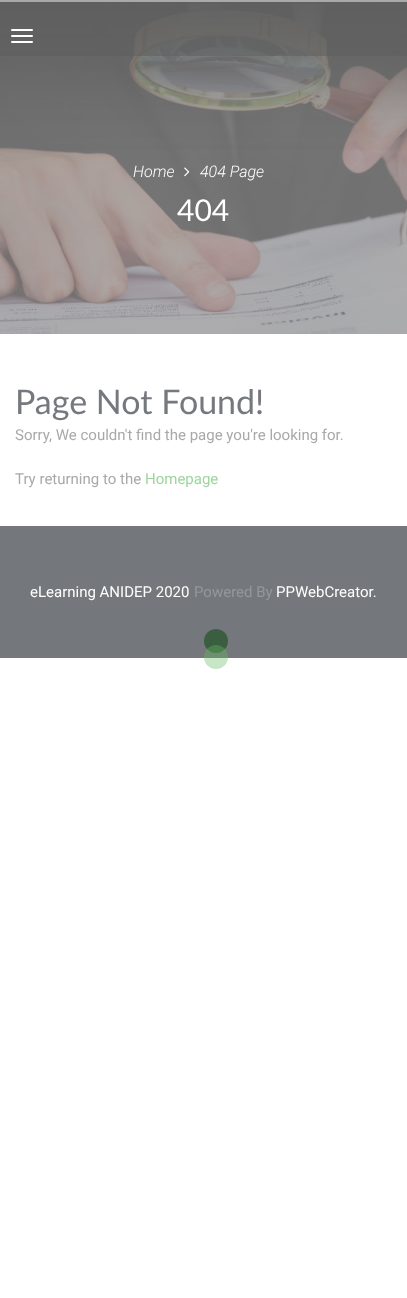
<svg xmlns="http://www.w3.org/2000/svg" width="407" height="1298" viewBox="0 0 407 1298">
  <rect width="100%" height="100%" fill="#ffffff"/>
  <rect x="0" y="0" width="407" height="2" fill="#a9a9a9"/>
  <image x="0" y="2" width="407" height="332" href="img2.png"/>
  <rect x="0" y="2" width="407" height="54" fill="#5e5e5e" fill-opacity="0.5"/>
  <image x="0" y="2" width="407" height="148" href="img1.png"/>
  <rect x="11" y="29" width="22" height="2" rx="1" fill="#ffffff"/>
  <rect x="11" y="35" width="22" height="2" rx="1" fill="#ffffff"/>
  <rect x="11" y="41" width="22" height="2" rx="1" fill="#ffffff"/>
  <text x="133" y="177" font-family="Roboto" font-size="16" font-weight="300" font-style="italic" fill="#ffffff">Home</text>
  <image x="184" y="167" width="6" height="10" href="img3.png"/>
  <text x="200" y="177" font-family="Roboto" font-size="16" font-weight="300" font-style="italic" fill="#ffffff">404 Page</text>
  <text x="177" y="221" font-family="Lato" font-size="30" fill="#ffffff">404</text>
  <text x="15" y="414" font-family="Lato" font-size="34" fill="#75787d">Page Not Found!</text>
  <text x="15" y="440" font-family="Roboto" font-size="15" fill="#a9a9a9">Sorry, We couldn't find the page you're looking for.</text>
  <text x="15" y="484" font-family="Roboto" font-size="15" fill="#a9a9a9">Try returning to the</text>
  <text x="145" y="484" font-family="Roboto" font-size="15" fill="#9dd59c">Homepage</text>
  <rect x="0" y="526" width="407" height="132" fill="#74777b"/>
  <text x="30" y="597" font-family="Roboto" font-size="15" fill="#ffffff">eLearning ANIDEP 2020</text>
  <text x="194" y="597" font-family="Roboto" font-size="15" fill="#95989b">Powered By</text>
  <text x="276" y="597" font-family="Roboto" font-size="15" fill="#ffffff">PPWebCreator.</text>
  <circle cx="216" cy="641" r="12" fill="#3b5e41"/>
  <circle cx="216" cy="657" r="12" fill="#64bc62" fill-opacity="0.37"/>
</svg>
